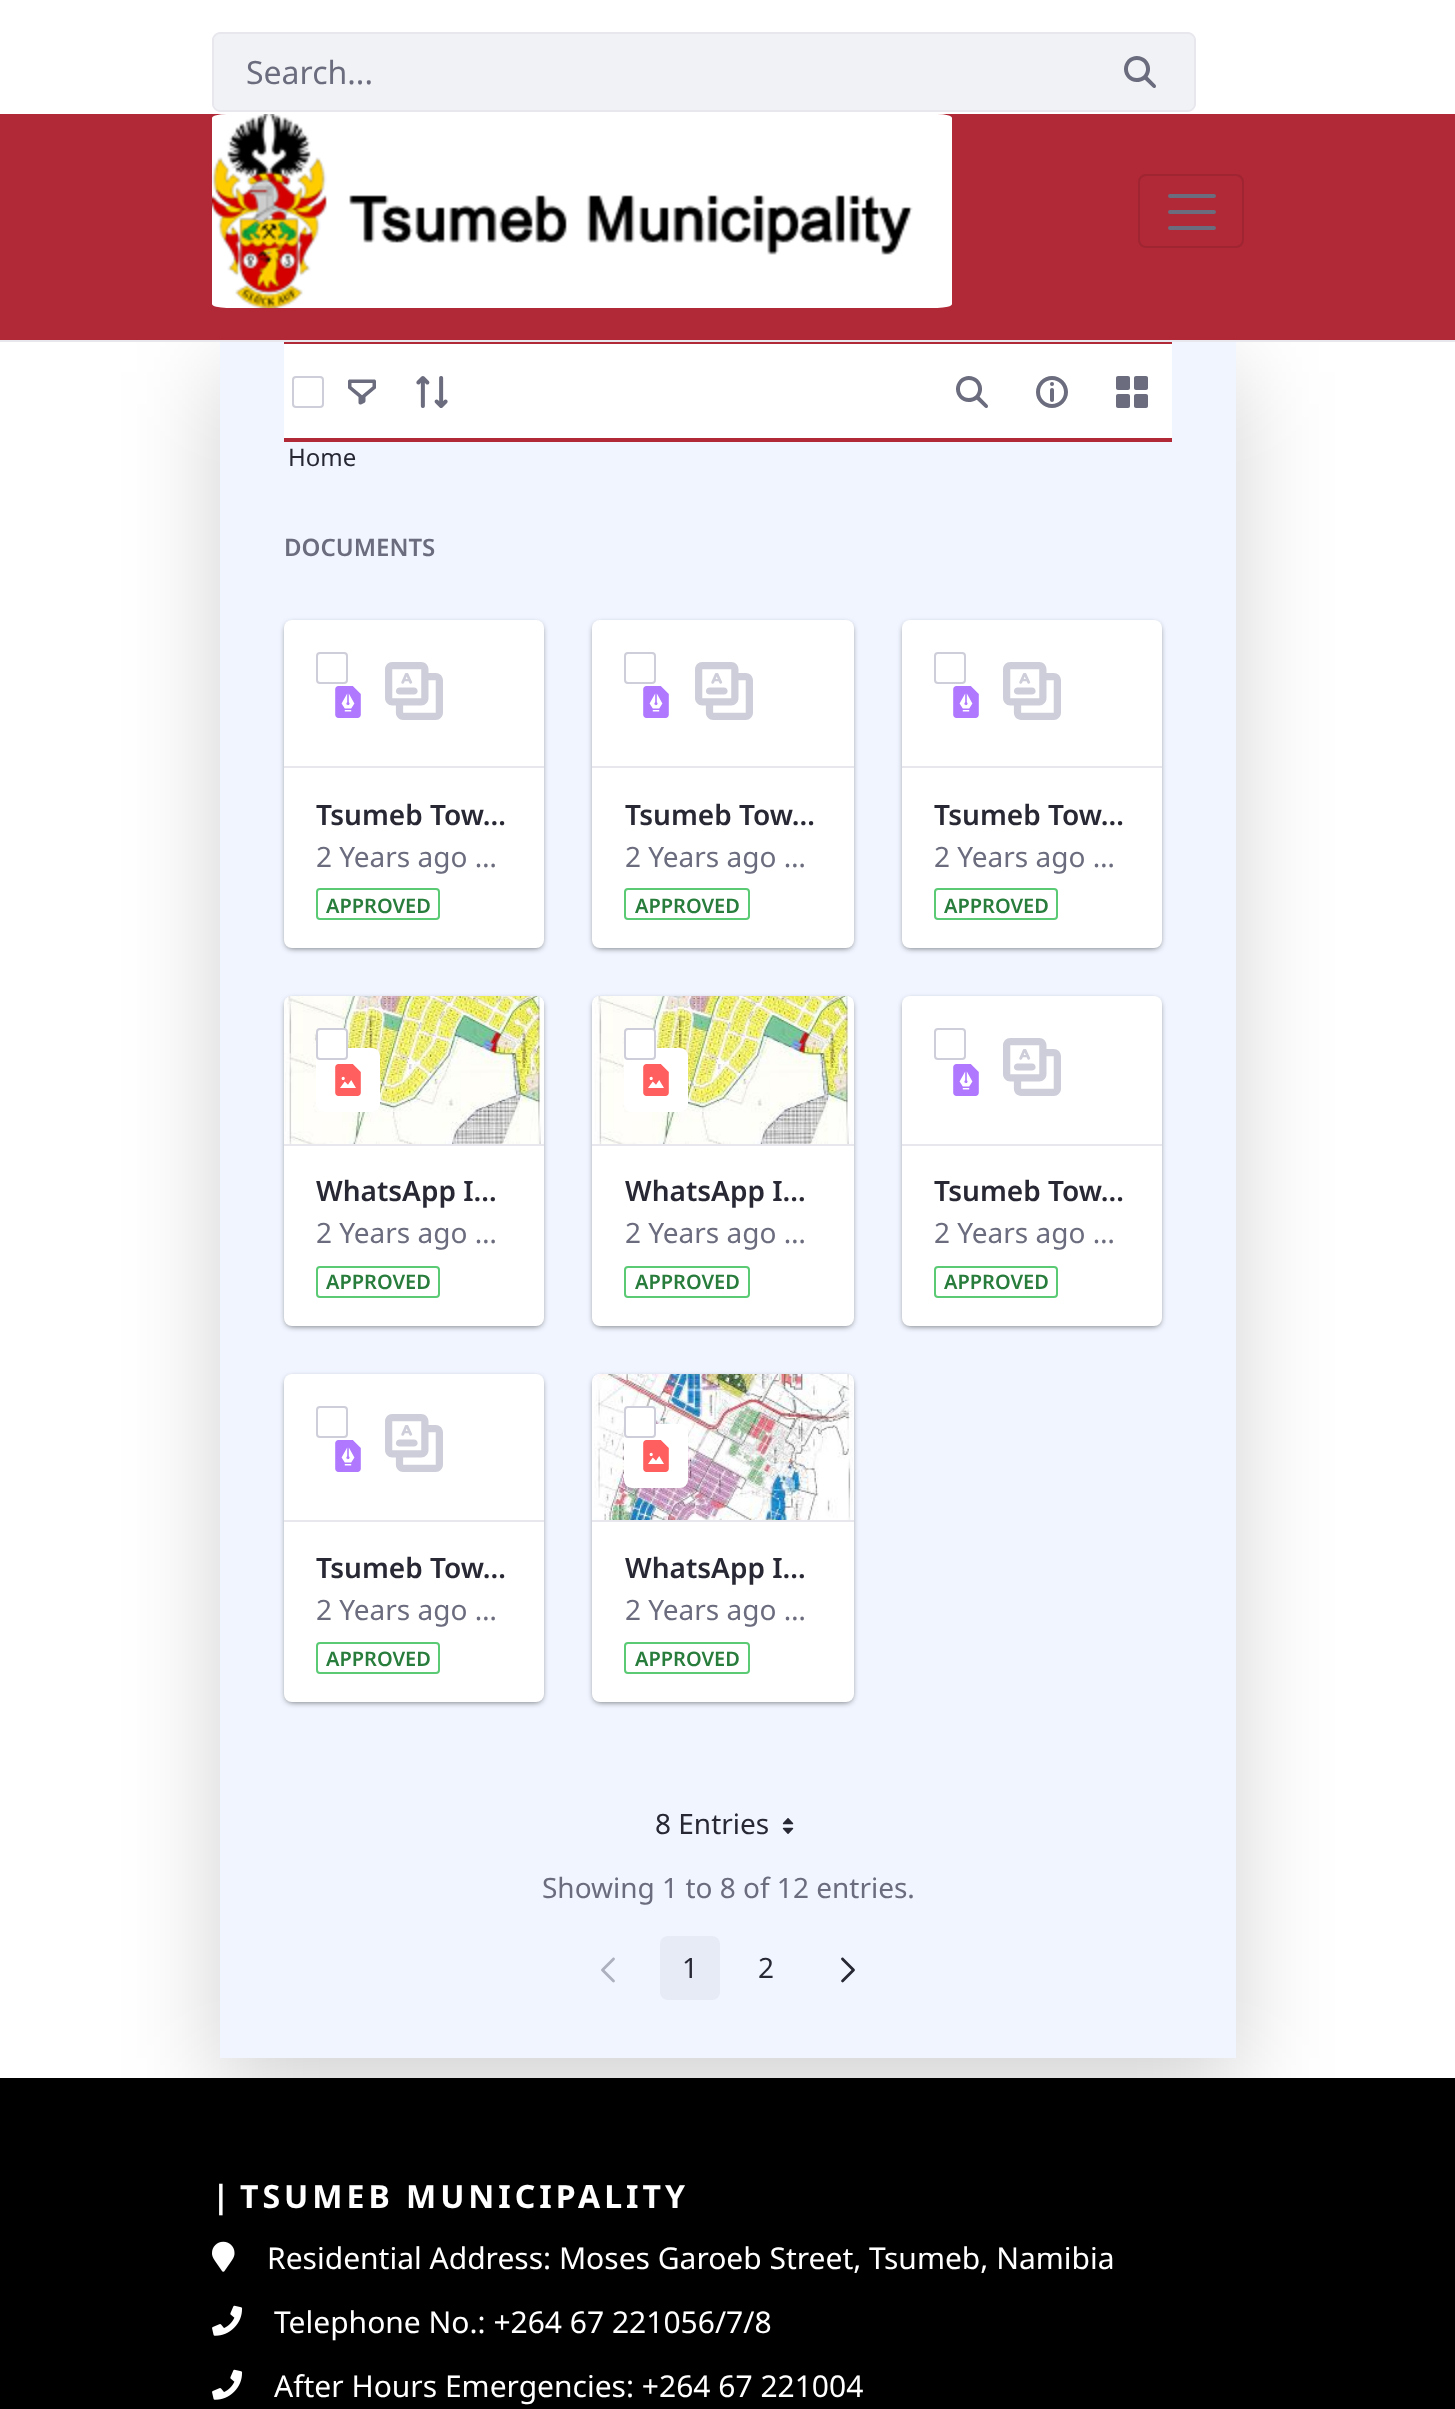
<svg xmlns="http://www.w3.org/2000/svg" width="1455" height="2409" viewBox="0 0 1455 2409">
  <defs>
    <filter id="blur1" x="-50%" y="-200%" width="200%" height="500%"><feGaussianBlur stdDeviation="48"/></filter>
    <filter id="blur2" x="-50%" y="-200%" width="200%" height="500%"><feGaussianBlur stdDeviation="3"/></filter>
  </defs>
  <rect width="100%" height="100%" fill="#ffffff"/>
  <path d="M220 34H1086V110H220C216.5 110 214 107.5 214 104V40C214 36.5 216.5 34 220 34Z" fill="#f1f2f5"/>
  <path d="M220 32H1086V112H220C216 112 212 108 212 104V40C212 36 216 32 220 32ZM220 34H1086V110H220C217 110 214 107 214 104V40C214 37 217 34 220 34Z" fill="#e7e7ed" fill-rule="evenodd"/>
  <text x="246" y="84" font-family="Noto Sans" font-size="32" fill="#6b6c7e">Search...</text>
  <path d="M1086 34H1188C1191.5 34 1194 36.5 1194 40V104C1194 107.5 1191.5 110 1188 110H1086Z" fill="#f1f2f5"/>
  <path d="M1086 32H1188C1192 32 1196 36 1196 40V104C1196 108 1192 112 1188 112H1086ZM1086 34H1188C1191 34 1194 37 1194 40V104C1194 107 1191 110 1188 110H1086Z" fill="#e7e7ed" fill-rule="evenodd"/>
  <image x="1124" y="56" width="32" height="32" href="img1.png"/>
  <rect x="220" y="372" width="1016" height="1718" fill="#000000" fill-opacity="0.18" filter="url(#blur1)"/>
  <rect x="0" y="114" width="1455" height="226" fill="#b12937"/>
  <rect x="0" y="340" width="1455" height="2" fill="#e7e7ed"/>
  <image x="212" y="114" width="740" height="194" href="img2.png"/>
  <rect x="1139" y="175" width="104" height="72" rx="7" fill="none" stroke="#9f2532" stroke-width="2"/>
  <path d="M1170 196H1214M1170 212H1214M1170 228H1214" fill="none" stroke="#6b6c7e" stroke-width="4" stroke-linecap="round"/>
  <rect x="220" y="342" width="1016" height="1716" fill="#f0f5ff"/>
  <rect x="284" y="342" width="888" height="100" fill="#b12937"/>
  <rect x="284" y="344" width="888" height="94" fill="#ffffff"/>
  <rect x="293" y="377" width="30" height="30" rx="3" fill="none" stroke="#cdced9" stroke-width="2"/>
  <image x="348" y="379" width="28" height="26" href="img3.png"/>
  <image x="416" y="376" width="32" height="32" href="img4.png"/>
  <image x="956" y="376" width="32" height="32" href="img5.png"/>
  <image x="1036" y="376" width="32" height="32" href="img6.png"/>
  <image x="1116" y="376" width="32" height="32" href="img7.png"/>
  <text x="288" y="466" font-family="Noto Sans" font-size="24" fill="#272833">Home</text>
  <text x="284" y="556" font-family="Noto Sans" font-size="24" font-weight="600" fill="#6b6c7e">DOCUMENTS</text>
  <rect x="286" y="624" width="256" height="324" rx="6" fill="#000000" fill-opacity="0.6" filter="url(#blur2)"/>
  <rect x="284" y="620" width="260" height="328" rx="8" fill="#ffffff"/>
  <rect x="284" y="766" width="260" height="2" fill="#e7e7ed"/>
  <rect x="317" y="653" width="30" height="30" rx="3" fill="none" stroke="#cdced9" stroke-width="2"/>
  <image x="385" y="662" width="58" height="58" href="img8.png"/>
  <image x="335" y="686" width="26" height="32" href="img9.png"/>
  <text x="316" y="825" font-family="Noto Sans" font-size="28" font-weight="600" fill="#272833">Tsumeb Tow…</text>
  <text x="316" y="867" font-family="Noto Sans" font-size="28" fill="#6b6c7e">2 Years ago …</text>
  <rect x="317" y="889" width="122" height="30" rx="3" fill="none" stroke="#5aca75" stroke-width="2"/>
  <text x="326" y="913" font-family="Noto Sans" font-size="20" font-weight="600" fill="#287d3c">APPROVED</text>
  <rect x="594" y="624" width="258" height="324" rx="6" fill="#000000" fill-opacity="0.6" filter="url(#blur2)"/>
  <rect x="592" y="620" width="262" height="328" rx="8" fill="#ffffff"/>
  <rect x="592" y="766" width="262" height="2" fill="#e7e7ed"/>
  <rect x="625" y="653" width="30" height="30" rx="3" fill="none" stroke="#cdced9" stroke-width="2"/>
  <image x="695" y="662" width="58" height="58" href="img8.png"/>
  <image x="643" y="686" width="26" height="32" href="img9.png"/>
  <text x="625" y="825" font-family="Noto Sans" font-size="28" font-weight="600" fill="#272833">Tsumeb Tow…</text>
  <text x="625" y="867" font-family="Noto Sans" font-size="28" fill="#6b6c7e">2 Years ago …</text>
  <rect x="625" y="889" width="124" height="30" rx="3" fill="none" stroke="#5aca75" stroke-width="2"/>
  <text x="635" y="913" font-family="Noto Sans" font-size="20" font-weight="600" fill="#287d3c">APPROVED</text>
  <rect x="904" y="624" width="256" height="324" rx="6" fill="#000000" fill-opacity="0.6" filter="url(#blur2)"/>
  <rect x="902" y="620" width="260" height="328" rx="8" fill="#ffffff"/>
  <rect x="902" y="766" width="260" height="2" fill="#e7e7ed"/>
  <rect x="935" y="653" width="30" height="30" rx="3" fill="none" stroke="#cdced9" stroke-width="2"/>
  <image x="1003" y="662" width="58" height="58" href="img10.png"/>
  <image x="953" y="686" width="26" height="32" href="img9.png"/>
  <text x="934" y="825" font-family="Noto Sans" font-size="28" font-weight="600" fill="#272833">Tsumeb Tow…</text>
  <text x="934" y="867" font-family="Noto Sans" font-size="28" fill="#6b6c7e">2 Years ago …</text>
  <rect x="935" y="889" width="122" height="30" rx="3" fill="none" stroke="#5aca75" stroke-width="2"/>
  <text x="944" y="913" font-family="Noto Sans" font-size="20" font-weight="600" fill="#287d3c">APPROVED</text>
  <rect x="286" y="1000" width="256" height="326" rx="6" fill="#000000" fill-opacity="0.6" filter="url(#blur2)"/>
  <rect x="284" y="996" width="260" height="330" rx="8" fill="#ffffff"/>
  <rect x="284" y="1144" width="260" height="2" fill="#e7e7ed"/>
  <image x="284" y="996" width="260" height="148" href="img11.png"/>
  <rect x="316" y="1048" width="64" height="64" rx="8" fill="#ffffff"/>
  <rect x="317" y="1029" width="30" height="30" rx="3" fill="#ffffff" stroke="#cdced9" stroke-width="2"/>
  <image x="335" y="1064" width="26" height="32" href="img12.png"/>
  <text x="316" y="1201" font-family="Noto Sans" font-size="28" font-weight="600" fill="#272833">WhatsApp I…</text>
  <text x="316" y="1243" font-family="Noto Sans" font-size="28" fill="#6b6c7e">2 Years ago …</text>
  <rect x="317" y="1267" width="122" height="30" rx="3" fill="none" stroke="#5aca75" stroke-width="2"/>
  <text x="326" y="1289" font-family="Noto Sans" font-size="20" font-weight="600" fill="#287d3c">APPROVED</text>
  <rect x="594" y="1000" width="258" height="326" rx="6" fill="#000000" fill-opacity="0.6" filter="url(#blur2)"/>
  <rect x="592" y="996" width="262" height="330" rx="8" fill="#ffffff"/>
  <rect x="592" y="1144" width="262" height="2" fill="#e7e7ed"/>
  <image x="594" y="996" width="259" height="148" href="img13.png"/>
  <rect x="624" y="1048" width="64" height="64" rx="8" fill="#ffffff"/>
  <rect x="625" y="1029" width="30" height="30" rx="3" fill="#ffffff" stroke="#cdced9" stroke-width="2"/>
  <image x="643" y="1064" width="26" height="32" href="img12.png"/>
  <text x="625" y="1201" font-family="Noto Sans" font-size="28" font-weight="600" fill="#272833">WhatsApp I…</text>
  <text x="625" y="1243" font-family="Noto Sans" font-size="28" fill="#6b6c7e">2 Years ago …</text>
  <rect x="625" y="1267" width="124" height="30" rx="3" fill="none" stroke="#5aca75" stroke-width="2"/>
  <text x="635" y="1289" font-family="Noto Sans" font-size="20" font-weight="600" fill="#287d3c">APPROVED</text>
  <rect x="904" y="1000" width="256" height="326" rx="6" fill="#000000" fill-opacity="0.6" filter="url(#blur2)"/>
  <rect x="902" y="996" width="260" height="330" rx="8" fill="#ffffff"/>
  <rect x="902" y="1144" width="260" height="2" fill="#e7e7ed"/>
  <rect x="935" y="1029" width="30" height="30" rx="3" fill="none" stroke="#cdced9" stroke-width="2"/>
  <image x="1003" y="1038" width="58" height="58" href="img14.png"/>
  <image x="953" y="1064" width="26" height="32" href="img9.png"/>
  <text x="934" y="1201" font-family="Noto Sans" font-size="28" font-weight="600" fill="#272833">Tsumeb Tow…</text>
  <text x="934" y="1243" font-family="Noto Sans" font-size="28" fill="#6b6c7e">2 Years ago …</text>
  <rect x="935" y="1267" width="122" height="30" rx="3" fill="none" stroke="#5aca75" stroke-width="2"/>
  <text x="944" y="1289" font-family="Noto Sans" font-size="20" font-weight="600" fill="#287d3c">APPROVED</text>
  <rect x="286" y="1378" width="256" height="324" rx="6" fill="#000000" fill-opacity="0.6" filter="url(#blur2)"/>
  <rect x="284" y="1374" width="260" height="328" rx="8" fill="#ffffff"/>
  <rect x="284" y="1520" width="260" height="2" fill="#e7e7ed"/>
  <rect x="317" y="1407" width="30" height="30" rx="3" fill="none" stroke="#cdced9" stroke-width="2"/>
  <image x="385" y="1414" width="58" height="58" href="img8.png"/>
  <image x="335" y="1440" width="26" height="32" href="img9.png"/>
  <text x="316" y="1578" font-family="Noto Sans" font-size="28" font-weight="600" fill="#272833">Tsumeb Tow…</text>
  <text x="316" y="1620" font-family="Noto Sans" font-size="28" fill="#6b6c7e">2 Years ago …</text>
  <rect x="317" y="1643" width="122" height="30" rx="3" fill="none" stroke="#5aca75" stroke-width="2"/>
  <text x="326" y="1666" font-family="Noto Sans" font-size="20" font-weight="600" fill="#287d3c">APPROVED</text>
  <rect x="594" y="1378" width="258" height="324" rx="6" fill="#000000" fill-opacity="0.6" filter="url(#blur2)"/>
  <rect x="592" y="1374" width="262" height="328" rx="8" fill="#ffffff"/>
  <rect x="592" y="1520" width="262" height="2" fill="#e7e7ed"/>
  <image x="594" y="1374" width="259" height="146" href="img15.png"/>
  <rect x="624" y="1424" width="64" height="64" rx="8" fill="#ffffff"/>
  <rect x="625" y="1407" width="30" height="30" rx="3" fill="#ffffff" stroke="#cdced9" stroke-width="2"/>
  <image x="643" y="1440" width="26" height="32" href="img12.png"/>
  <text x="625" y="1578" font-family="Noto Sans" font-size="28" font-weight="600" fill="#272833">WhatsApp I…</text>
  <text x="625" y="1620" font-family="Noto Sans" font-size="28" fill="#6b6c7e">2 Years ago …</text>
  <rect x="625" y="1643" width="124" height="30" rx="3" fill="none" stroke="#5aca75" stroke-width="2"/>
  <text x="635" y="1666" font-family="Noto Sans" font-size="20" font-weight="600" fill="#287d3c">APPROVED</text>
  <text x="655" y="1834" font-family="Noto Sans" font-size="28" fill="#272833">8 Entries</text>
  <image x="782" y="1818" width="12" height="16" href="img16.png"/>
  <text x="542" y="1898" font-family="Noto Sans" font-size="28" fill="#6b6c7e">Showing 1 to 8 of 12 entries.</text>
  <image x="601" y="1957" width="14" height="26" href="img17.png"/>
  <rect x="660" y="1936" width="60" height="64" rx="8" fill="#e6ebf5"/>
  <text x="682" y="1978" font-family="Noto Sans" font-size="28" fill="#272833">1</text>
  <text x="758" y="1978" font-family="Noto Sans" font-size="28" fill="#272833">2</text>
  <image x="841" y="1957" width="14" height="26" href="img18.png"/>
  <rect x="0" y="2078" width="1455" height="331" fill="#000000"/>
  <text x="212" y="2208" font-family="Noto Sans" font-size="32" font-weight="bold" letter-spacing="4" fill="#ffffff">|</text>
  <text x="240" y="2208" font-family="Noto Sans" font-size="32" font-weight="bold" letter-spacing="4" fill="#ffffff">TSUMEB MUNICIPALITY</text>
  <image x="212" y="2241" width="23" height="31" href="img19.png"/>
  <text x="267" y="2269" font-family="Noto Sans" font-size="30" fill="#ffffff">Residential Address: Moses Garoeb Street, Tsumeb, Namibia</text>
  <image x="212" y="2305" width="31" height="31" href="img20.png"/>
  <text x="274" y="2333" font-family="Noto Sans" font-size="30" fill="#ffffff">Telephone No.: +264 67 221056/7/8</text>
  <image x="212" y="2369" width="31" height="31" href="img20.png"/>
  <text x="274" y="2397" font-family="Noto Sans" font-size="30" fill="#ffffff">After Hours Emergencies: +264 67 221004</text>
</svg>
